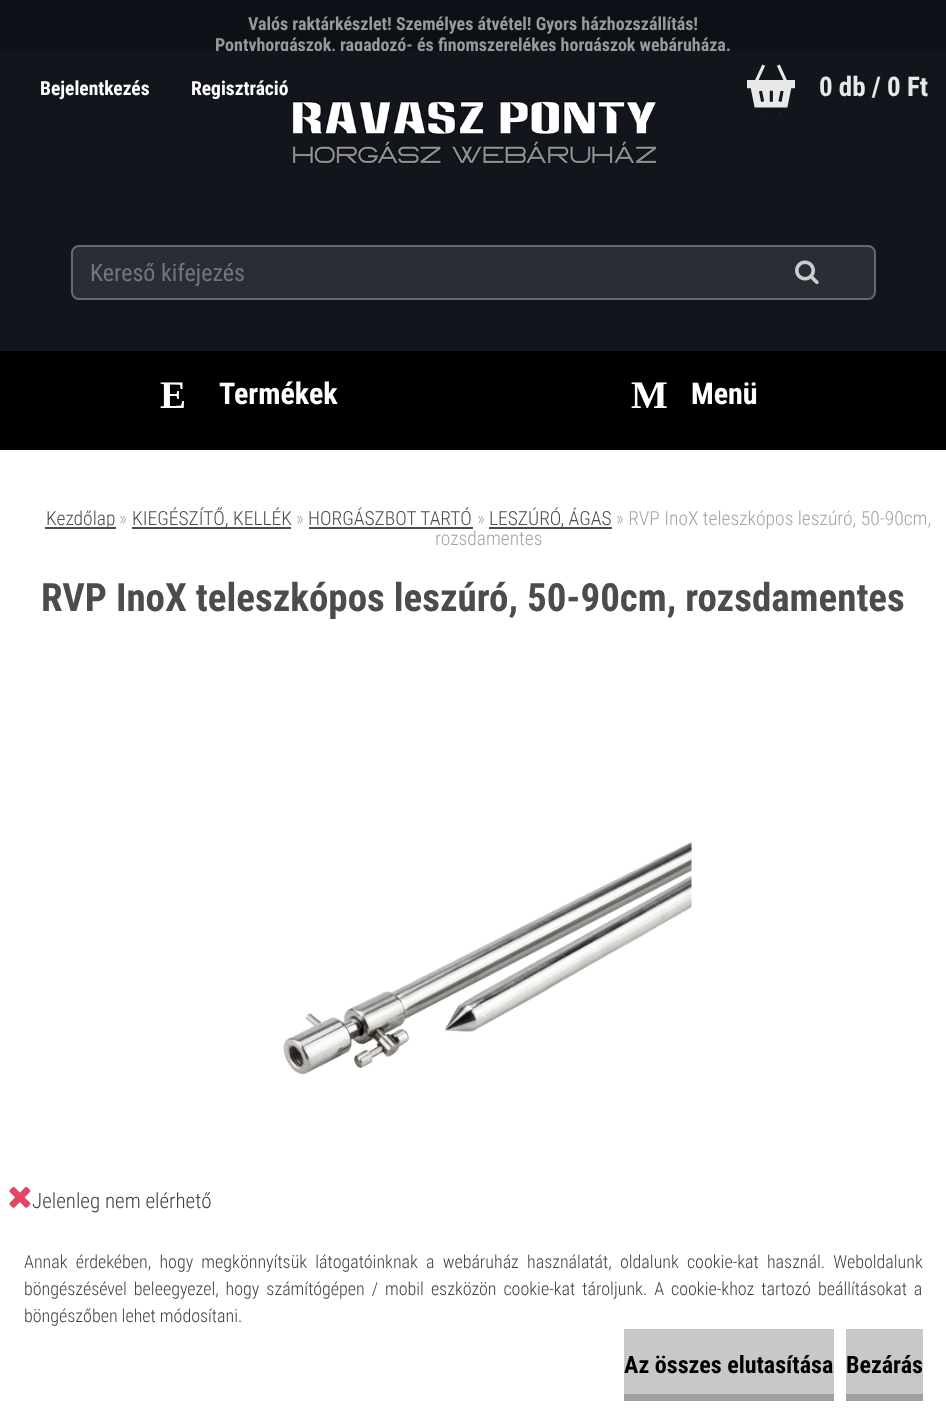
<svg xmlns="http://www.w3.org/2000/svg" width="946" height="1424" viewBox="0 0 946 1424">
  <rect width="100%" height="100%" fill="#0d1117"/>
  <text x="248" y="30" font-family="Roboto Condensed" font-size="18" font-weight="bold" fill="#999999">Valós raktárkészlet! Személyes átvétel! Gyors házhozszállítás!</text>
  <text x="215" y="51" font-family="Roboto Condensed" font-size="18" font-weight="bold" fill="#999999">Pontyhorgászok, ragadozó- és finomszerelékes horgászok webáruháza.</text>
  <rect x="0" y="51" width="946" height="300" fill="#12161c"/>
  <text x="40" y="95" font-family="Roboto Condensed" font-size="19.5" font-weight="bold" fill="#ffffff">Bejelentkezés</text>
  <text x="191" y="95" font-family="Roboto Condensed" font-size="19.5" font-weight="bold" fill="#ffffff">Regisztráció</text>
  <image x="747" y="64" width="48" height="49" href="img1.png"/>
  <text x="819" y="96" font-family="Roboto Condensed" font-size="27" font-weight="bold" fill="#e7e8e8">0 db / 0 Ft</text>
  <image x="288" y="88" width="369" height="76" href="img2.png"/>
  <rect x="72" y="246" width="803" height="53" rx="7" fill="#282d36" stroke="#696969" stroke-width="2"/>
  <text x="90" y="281" font-family="Roboto Condensed" font-size="24" fill="#757575">Kereső kifejezés</text>
  <image x="795" y="260" width="24" height="25" href="img3.png"/>
  <rect x="0" y="450" width="946" height="974" fill="#ffffff"/>
  <rect x="0" y="351" width="946" height="99" fill="#000000"/>
  <text x="160" y="408" font-family="Liberation Serif" font-size="39" font-weight="bold" fill="#ffffff">E</text>
  <text x="219" y="404" font-family="Roboto Condensed" font-size="30" font-weight="bold" fill="#ffffff">Termékek</text>
  <text x="631" y="408" font-family="Liberation Serif" font-size="39" font-weight="bold" fill="#ffffff">M</text>
  <text x="691" y="404" font-family="Roboto Condensed" font-size="30" font-weight="bold" fill="#ffffff">Menü</text>
  <rect x="45" y="527" width="71" height="2" fill="#4d4d4d"/>
  <text x="46" y="525" font-family="Roboto Condensed" font-size="19.5" font-weight="300" fill="#4c4c4c">Kezdőlap</text>
  <text x="119" y="525" font-family="Roboto Condensed" font-size="19.5" font-weight="300" fill="#a5a5a5">»</text>
  <rect x="132" y="527" width="159" height="2" fill="#4d4d4d"/>
  <text x="132" y="525" font-family="Roboto Condensed" font-size="19.5" font-weight="300" fill="#4c4c4c">KIEGÉSZÍTŐ, KELLÉK</text>
  <text x="296" y="525" font-family="Roboto Condensed" font-size="19.5" font-weight="300" fill="#a5a5a5">»</text>
  <text x="308" y="525" font-family="Roboto Condensed" font-size="19.5" font-weight="300" fill="#4c4c4c">HORGÁSZBOT TARTÓ</text>
  <rect x="309" y="527" width="164" height="2" fill="#4d4d4d"/>
  <text x="477" y="525" font-family="Roboto Condensed" font-size="19.5" font-weight="300" fill="#a5a5a5">»</text>
  <rect x="489" y="527" width="123" height="2" fill="#4d4d4d"/>
  <text x="489" y="525" font-family="Roboto Condensed" font-size="19.5" font-weight="300" fill="#4c4c4c">LESZÚRÓ, ÁGAS</text>
  <text x="616" y="525" font-family="Roboto Condensed" font-size="19.5" font-weight="300" fill="#a5a5a5">» RVP InoX teleszkópos leszúró, 50-90cm,</text>
  <text x="435" y="545" font-family="Roboto Condensed" font-size="19.5" font-weight="300" fill="#a5a5a5">rozsdamentes</text>
  <text x="41" y="611" font-family="Roboto Condensed" font-size="39" font-weight="bold" fill="#4c4c4c">RVP InoX teleszkópos leszúró, 50-90cm, rozsdamentes</text>
  <image x="283" y="842" width="409" height="233" href="img4.png"/>
  <image x="9" y="1186" width="22" height="22" href="img5.png"/>
  <text x="32" y="1208" font-family="Roboto Condensed" font-size="21" font-weight="300" fill="#3f3f3f">Jelenleg nem elérhető</text>
  <text x="24" y="1268" word-spacing="4.1" font-family="Roboto Condensed" font-size="18" font-weight="300" fill="#3f3f3f">Annak érdekében, hogy megkönnyítsük látogatóinknak a webáruház használatát, oldalunk cookie-kat használ. Weboldalunk</text>
  <text x="24" y="1295" word-spacing="2.9" font-family="Roboto Condensed" font-size="18" font-weight="300" fill="#3f3f3f">böngészésével beleegyezel, hogy számítógépen / mobil eszközön cookie-kat tároljunk. A cookie-khoz tartozó beállításokat a</text>
  <text x="24" y="1322" font-family="Roboto Condensed" font-size="18" font-weight="300" fill="#3f3f3f">böngészőben lehet módosítani.</text>
  <rect x="624" y="1329" width="210" height="65" fill="#c8c8c8"/>
  <rect x="624" y="1394" width="210" height="7" fill="#a0a0a0"/>
  <text x="624" y="1373" font-family="Roboto Condensed" font-size="24" font-weight="bold" fill="#000000">Az összes elutasítása</text>
  <rect x="846" y="1329" width="77" height="65" fill="#c8c8c8"/>
  <rect x="846" y="1394" width="77" height="7" fill="#a0a0a0"/>
  <text x="846" y="1373" font-family="Roboto Condensed" font-size="24" font-weight="bold" fill="#000000">Bezárás</text>
</svg>
